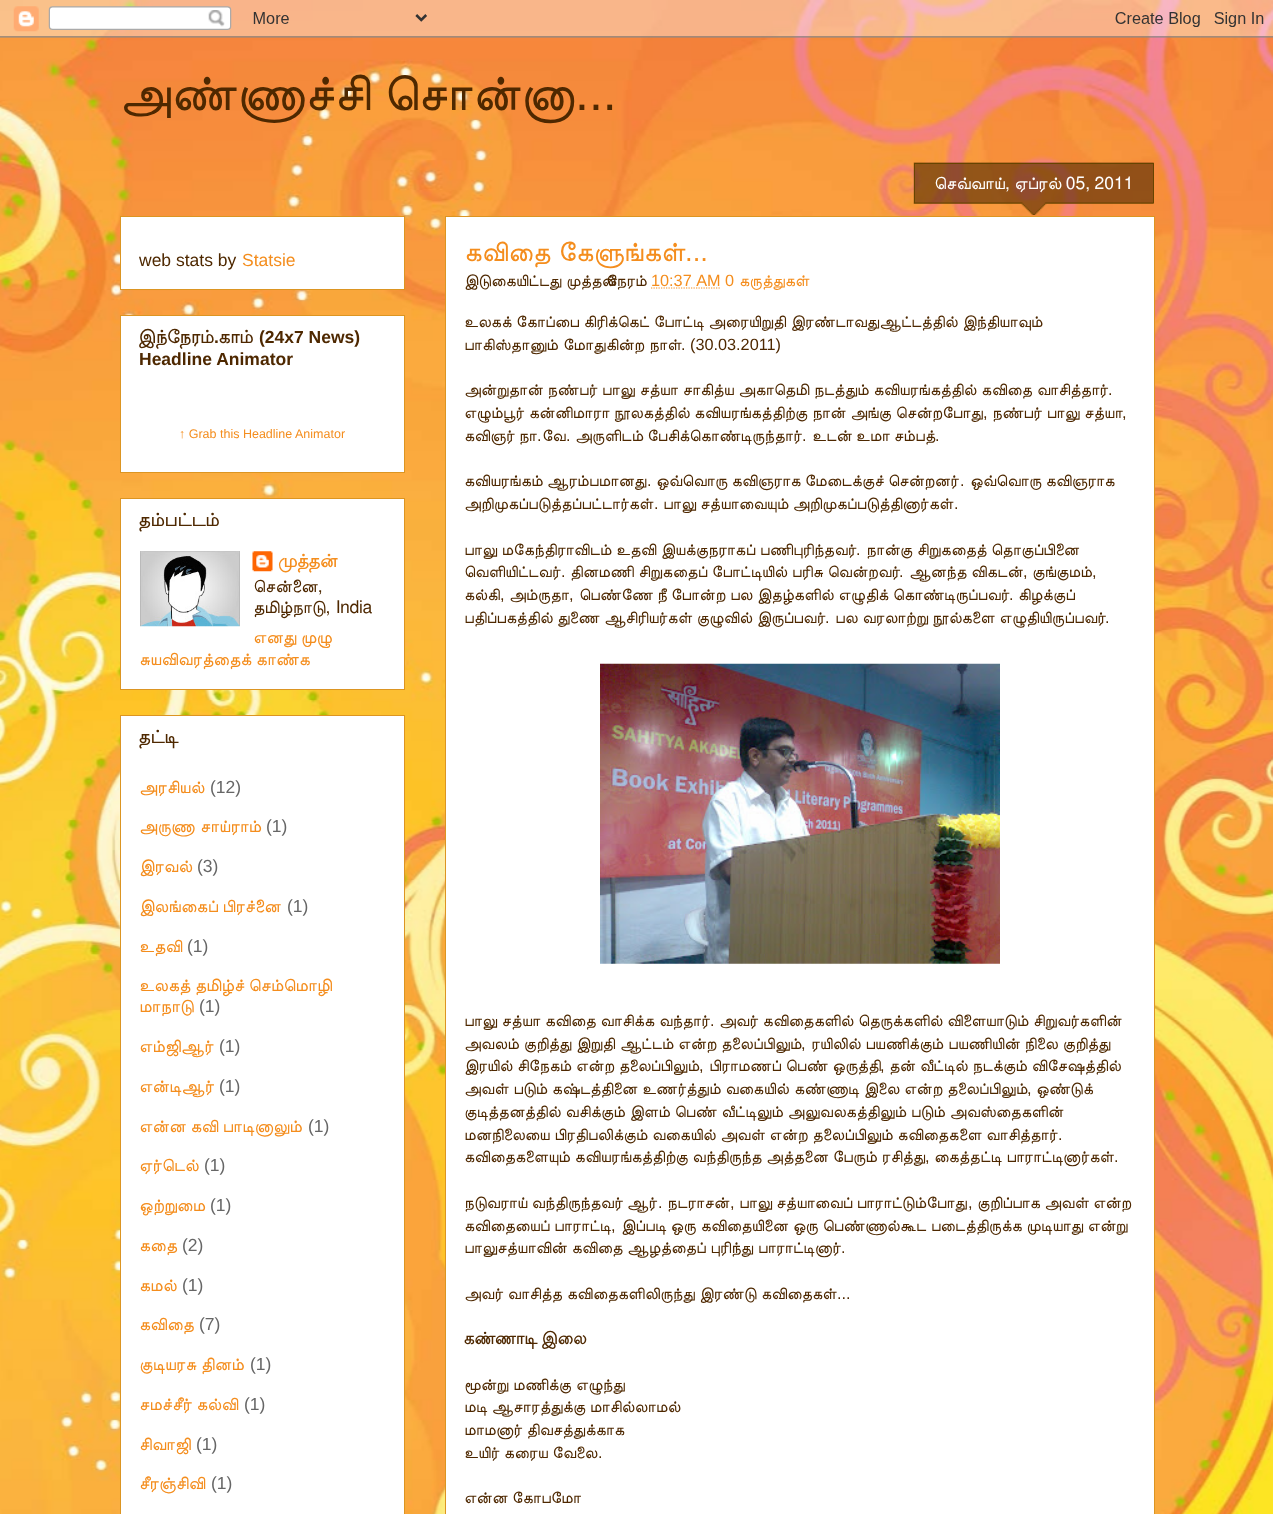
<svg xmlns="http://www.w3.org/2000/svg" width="1273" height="1514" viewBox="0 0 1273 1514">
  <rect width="100%" height="100%" fill="#ffffff"/>
  <image x="0" y="0" width="1273" height="1514" href="img1.png"/>
  <image x="0" y="0" width="1273" height="38" href="img2.png"/>
  <text x="119" y="110" word-spacing="1" font-family="FreeSans" font-size="50" fill="#4e2800">அண்ணாச்சி சொன்னா</text>
  <text x="575" y="110" font-family="Liberation Sans" font-size="50" fill="#4e2800">...</text>
  <rect x="120.5" y="216.5" width="284" height="73" fill="#ffffff" stroke="#dc9522"/>
  <text x="139" y="266" font-family="Liberation Sans" font-size="17.5" fill="#4e2800">web stats by</text>
  <text x="242" y="266" font-family="Liberation Sans" font-size="17.5" fill="#f48d1d">Statsie</text>
  <rect x="120.5" y="315.5" width="284" height="157" fill="#ffffff" stroke="#dc9522"/>
  <text x="139" y="343" font-family="Lohit Tamil" font-size="17.5" font-weight="bold" fill="#4e2800">இந்நேரம்</text>
  <text x="214" y="343" font-family="Liberation Sans" font-size="17.5" font-weight="bold" fill="#4e2800">.</text>
  <text x="219" y="343" font-family="Lohit Tamil" font-size="17.5" font-weight="bold" fill="#4e2800">காம்</text>
  <text x="259" y="343" font-family="Liberation Sans" font-size="17.5" font-weight="bold" fill="#4e2800">(24x7 News)</text>
  <text x="139" y="365" font-family="Liberation Sans" font-size="17.5" font-weight="bold" fill="#4e2800">Headline Animator</text>
  <text x="179" y="438" font-family="Liberation Sans" font-size="12.5" fill="#f48d1d">↑ Grab this Headline Animator</text>
  <rect x="120.5" y="498.5" width="284" height="191" fill="#ffffff" stroke="#dc9522"/>
  <text x="139" y="526" font-family="Lohit Tamil" font-size="17.5" font-weight="bold" fill="#4e2800">தம்பட்டம்</text>
  <image x="140" y="551" width="100" height="76" href="img3.png"/>
  <image x="252" y="551" width="21" height="21" href="img4.png"/>
  <text x="278" y="567" font-family="Lohit Tamil" font-size="17.5" font-weight="bold" fill="#f48d1d">முத்தன்</text>
  <text x="253" y="592" font-family="FreeSans" font-size="17.5" fill="#4e2800">சென்னை,</text>
  <text x="253" y="613" word-spacing="1" font-family="FreeSans" font-size="17.5" fill="#4e2800">தமிழ்நாடு, India</text>
  <text x="253" y="643" font-family="FreeSans" font-size="17.5" fill="#f48d1d">எனது முழு</text>
  <text x="139" y="665" font-family="FreeSans" font-size="17.5" fill="#f48d1d">சுயவிவரத்தைக் காண்க</text>
  <rect x="120.5" y="715.5" width="284" height="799" fill="#ffffff" stroke="#dc9522"/>
  <text x="139" y="743" font-family="Lohit Tamil" font-size="17.5" font-weight="bold" fill="#4e2800">தட்டி</text>
  <text x="139" y="793" font-family="FreeSans" font-size="17.5" fill="#f48d1d">அரசியல்</text>
  <text x="210" y="793" font-family="Liberation Sans" font-size="17.5" fill="#666666">(12)</text>
  <text x="139" y="832" word-spacing="1" font-family="FreeSans" font-size="17.5" fill="#f48d1d">அருணா சாய்ராம்</text>
  <text x="266" y="832" font-family="Liberation Sans" font-size="17.5" fill="#666666">(1)</text>
  <text x="139" y="872" font-family="FreeSans" font-size="17.5" fill="#f48d1d">இரவல்</text>
  <text x="197" y="872" font-family="Liberation Sans" font-size="17.5" fill="#666666">(3)</text>
  <text x="139" y="912" font-family="FreeSans" font-size="17.5" fill="#f48d1d">இலங்கைப் பிரச்னை</text>
  <text x="287" y="912" font-family="Liberation Sans" font-size="17.5" fill="#666666">(1)</text>
  <text x="139" y="952" font-family="FreeSans" font-size="17.5" fill="#f48d1d">உதவி</text>
  <text x="187" y="952" font-family="Liberation Sans" font-size="17.5" fill="#666666">(1)</text>
  <text x="139" y="991" font-family="FreeSans" font-size="17.5" fill="#f48d1d">உலகத் தமிழ்ச் செம்மொழி</text>
  <text x="139" y="1012" font-family="FreeSans" font-size="17.5" fill="#f48d1d">மாநாடு</text>
  <text x="199" y="1012" font-family="Liberation Sans" font-size="17.5" fill="#666666">(1)</text>
  <text x="139" y="1052" font-family="FreeSans" font-size="17.5" fill="#f48d1d">எம்ஜிஆர்</text>
  <text x="219" y="1052" font-family="Liberation Sans" font-size="17.5" fill="#666666">(1)</text>
  <text x="139" y="1092" font-family="FreeSans" font-size="17.5" fill="#f48d1d">என்டிஆர்</text>
  <text x="219" y="1092" font-family="Liberation Sans" font-size="17.5" fill="#666666">(1)</text>
  <text x="139" y="1132" font-family="FreeSans" font-size="17.5" fill="#f48d1d">என்ன கவி பாடினாலும்</text>
  <text x="308" y="1132" font-family="Liberation Sans" font-size="17.5" fill="#666666">(1)</text>
  <text x="139" y="1171" font-family="FreeSans" font-size="17.5" fill="#f48d1d">ஏர்டெல்</text>
  <text x="204" y="1171" font-family="Liberation Sans" font-size="17.5" fill="#666666">(1)</text>
  <text x="139" y="1211" font-family="FreeSans" font-size="17.5" fill="#f48d1d">ஒற்றுமை</text>
  <text x="210" y="1211" font-family="Liberation Sans" font-size="17.5" fill="#666666">(1)</text>
  <text x="139" y="1251" font-family="FreeSans" font-size="17.5" fill="#f48d1d">கதை</text>
  <text x="182" y="1251" font-family="Liberation Sans" font-size="17.5" fill="#666666">(2)</text>
  <text x="139" y="1291" font-family="FreeSans" font-size="17.5" fill="#f48d1d">கமல்</text>
  <text x="182" y="1291" font-family="Liberation Sans" font-size="17.5" fill="#666666">(1)</text>
  <text x="139" y="1330" font-family="FreeSans" font-size="17.5" fill="#f48d1d">கவிதை</text>
  <text x="199" y="1330" font-family="Liberation Sans" font-size="17.5" fill="#666666">(7)</text>
  <text x="139" y="1370" font-family="FreeSans" font-size="17.5" fill="#f48d1d">குடியரசு தினம்</text>
  <text x="250" y="1370" font-family="Liberation Sans" font-size="17.5" fill="#666666">(1)</text>
  <text x="139" y="1410" font-family="FreeSans" font-size="17.5" fill="#f48d1d">சமச்சீர் கல்வி</text>
  <text x="244" y="1410" font-family="Liberation Sans" font-size="17.5" fill="#666666">(1)</text>
  <text x="139" y="1450" font-family="FreeSans" font-size="17.5" fill="#f48d1d">சிவாஜி</text>
  <text x="196" y="1450" font-family="Liberation Sans" font-size="17.5" fill="#666666">(1)</text>
  <text x="139" y="1489" font-family="FreeSans" font-size="17.5" fill="#f48d1d">சீரஞ்சிவி</text>
  <text x="211" y="1489" font-family="Liberation Sans" font-size="17.5" fill="#666666">(1)</text>
  <rect x="445.5" y="216.5" width="709" height="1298" fill="#ffffff" stroke="#dc9522"/>
  <image x="913" y="162" width="241" height="53" href="img5.png"/>
  <rect x="914" y="163" width="240" height="1" fill="#664400"/>
  <rect x="1153" y="164" width="1" height="39" fill="#664400"/>
  <rect x="914" y="164" width="1" height="39" fill="#664400"/>
  <text x="934" y="189" font-family="FreeSans" font-size="17.5" fill="#ffffff">செவ்வாய், ஏப்ரல் 05, 2011</text>
  <text x="464" y="261" word-spacing="1" font-family="FreeSans" font-size="27.5" fill="#f48d1d">கவிதை கேளுங்கள்</text>
  <text x="685" y="261" font-family="Liberation Sans" font-size="27.5" fill="#f48d1d">...</text>
  <text x="464" y="286" font-family="FreeSans" font-size="16.25" fill="#4e2800">இடுகையிட்டது</text>
  <text x="566" y="286" font-family="FreeSans" font-size="16.25" fill="#4e2800">முத்தன்</text>
  <text x="606" y="286" font-family="FreeSans" font-size="16.25" fill="#4e2800">நேரம்</text>
  <text x="651" y="286" word-spacing="1" font-family="Liberation Sans" font-size="16.25" fill="#f48d1d">10:37 AM</text>
  <path d="M651 288H720.5" fill="none" stroke="#f48d1d" stroke-width="1.2" stroke-dasharray="1.25 1.25"/>
  <text x="725" y="286" font-family="Liberation Sans" font-size="16.25" fill="#f48d1d">0</text>
  <text x="739" y="286" font-family="FreeSans" font-size="16.25" fill="#f48d1d">கருத்துகள்</text>
  <text x="464" y="327" word-spacing="0.5" font-family="FreeSans" font-size="16.25" fill="#4e2800">உலகக் கோப்பை கிரிக்கெட் போட்டி அரையிறுதி இரண்டாவதுஆட்டத்தில் இந்தியாவும்</text>
  <text x="464" y="350" font-family="FreeSans" font-size="16.25" fill="#4e2800">பாகிஸ்தானும்</text>
  <text x="563" y="350" font-family="FreeSans" font-size="16.25" fill="#4e2800">மோதுகின்ற</text>
  <text x="649" y="350" font-family="FreeSans" font-size="16.25" fill="#4e2800">நாள்</text>
  <text x="681" y="350" font-family="Liberation Sans" font-size="16.25" fill="#4e2800">. (30.03.2011)</text>
  <text x="464" y="395" word-spacing="0.5" font-family="FreeSans" font-size="16.25" fill="#4e2800">அன்றுதான் நண்பர் பாலு சத்யா சாகித்ய அகாதெமி நடத்தும் கவியரங்கத்தில் கவிதை வாசித்தார்</text>
  <text x="1108" y="395" font-family="Liberation Sans" font-size="16.25" fill="#4e2800">.</text>
  <text x="464" y="418" word-spacing="0.5" font-family="FreeSans" font-size="16.25" fill="#4e2800">எழும்பூர் கன்னிமாரா நூலகத்தில் கவியரங்கத்திற்கு நான் அங்கு சென்றபோது</text>
  <text x="983" y="418" font-family="Liberation Sans" font-size="16.25" fill="#4e2800">,</text>
  <text x="992" y="418" word-spacing="0.5" font-family="FreeSans" font-size="16.25" fill="#4e2800">நண்பர் பாலு சத்யா</text>
  <text x="1122" y="418" font-family="Liberation Sans" font-size="16.25" fill="#4e2800">,</text>
  <text x="464" y="441" font-family="FreeSans" font-size="16.25" fill="#4e2800">கவிஞர் நா</text>
  <text x="537" y="441" font-family="Liberation Sans" font-size="16.25" fill="#4e2800">.</text>
  <text x="542" y="441" font-family="FreeSans" font-size="16.25" fill="#4e2800">வே</text>
  <text x="566" y="441" font-family="Liberation Sans" font-size="16.25" fill="#4e2800">.</text>
  <text x="575" y="441" font-family="FreeSans" font-size="16.25" fill="#4e2800">அருளிடம் பேசிக்கொண்டிருந்தார்</text>
  <text x="802" y="441" font-family="Liberation Sans" font-size="16.25" fill="#4e2800">.</text>
  <text x="812" y="441" font-family="FreeSans" font-size="16.25" fill="#4e2800">உடன் உமா சம்பத்</text>
  <text x="935" y="441" font-family="Liberation Sans" font-size="16.25" fill="#4e2800">.</text>
  <text x="464" y="486" font-family="FreeSans" font-size="16.25" fill="#4e2800">கவியரங்கம் ஆரம்பமானது</text>
  <text x="647" y="486" font-family="Liberation Sans" font-size="16.25" fill="#4e2800">.</text>
  <text x="656" y="486" font-family="FreeSans" font-size="16.25" fill="#4e2800">ஒவ்வொரு கவிஞராக மேடைக்குச் சென்றனர்</text>
  <text x="960" y="486" font-family="Liberation Sans" font-size="16.25" fill="#4e2800">.</text>
  <text x="970" y="486" font-family="FreeSans" font-size="16.25" fill="#4e2800">ஒவ்வொரு கவிஞராக</text>
  <text x="464" y="509" font-family="FreeSans" font-size="16.25" fill="#4e2800">அறிமுகப்படுத்தப்பட்டார்கள்</text>
  <text x="654" y="509" font-family="Liberation Sans" font-size="16.25" fill="#4e2800">.</text>
  <text x="663" y="509" font-family="FreeSans" font-size="16.25" fill="#4e2800">பாலு சத்யாவையும் அறிமுகப்படுத்தினார்கள்</text>
  <text x="954" y="509" font-family="Liberation Sans" font-size="16.25" fill="#4e2800">.</text>
  <text x="464" y="555" word-spacing="0.5" font-family="FreeSans" font-size="16.25" fill="#4e2800">பாலு மகேந்திராவிடம் உதவி இயக்குநராகப் பணிபுரிந்தவர்</text>
  <text x="856" y="555" font-family="Liberation Sans" font-size="16.25" fill="#4e2800">.</text>
  <text x="866" y="555" word-spacing="0.5" font-family="FreeSans" font-size="16.25" fill="#4e2800">நான்கு சிறுகதைத் தொகுப்பினை</text>
  <text x="464" y="577" font-family="FreeSans" font-size="16.25" fill="#4e2800">வெளியிட்டவர்</text>
  <text x="561" y="577" font-family="Liberation Sans" font-size="16.25" fill="#4e2800">.</text>
  <text x="570" y="577" word-spacing="0.5" font-family="FreeSans" font-size="16.25" fill="#4e2800">தினமணி சிறுகதைப் போட்டியில் பரிசு வென்றவர்</text>
  <text x="899" y="577" font-family="Liberation Sans" font-size="16.25" fill="#4e2800">.</text>
  <text x="909" y="577" word-spacing="0.5" font-family="FreeSans" font-size="16.25" fill="#4e2800">ஆனந்த விகடன்</text>
  <text x="1023" y="577" font-family="Liberation Sans" font-size="16.25" fill="#4e2800">,</text>
  <text x="1032" y="577" font-family="FreeSans" font-size="16.25" fill="#4e2800">குங்குமம்</text>
  <text x="1092" y="577" font-family="Liberation Sans" font-size="16.25" fill="#4e2800">,</text>
  <text x="464" y="600" font-family="FreeSans" font-size="16.25" fill="#4e2800">கல்கி</text>
  <text x="500" y="600" font-family="Liberation Sans" font-size="16.25" fill="#4e2800">,</text>
  <text x="509" y="600" font-family="FreeSans" font-size="16.25" fill="#4e2800">அம்ருதா</text>
  <text x="569" y="600" font-family="Liberation Sans" font-size="16.25" fill="#4e2800">,</text>
  <text x="579" y="600" font-family="FreeSans" font-size="16.25" fill="#4e2800">பெண்ணே நீ</text>
  <text x="671" y="600" word-spacing="0.5" font-family="FreeSans" font-size="16.25" fill="#4e2800">போன்ற பல இதழ்களில் எழுதிக் கொண்டிருப்பவர்</text>
  <text x="1009" y="600" font-family="Liberation Sans" font-size="16.25" fill="#4e2800">.</text>
  <text x="1018" y="600" font-family="FreeSans" font-size="16.25" fill="#4e2800">கிழக்குப்</text>
  <text x="464" y="623" word-spacing="0.5" font-family="FreeSans" font-size="16.25" fill="#4e2800">பதிப்பகத்தில் துணை ஆசிரியர்கள் குழுவில் இருப்பவர்</text>
  <text x="825" y="623" font-family="Liberation Sans" font-size="16.25" fill="#4e2800">.</text>
  <text x="835" y="623" word-spacing="0.5" font-family="FreeSans" font-size="16.25" fill="#4e2800">பல வரலாற்று நூல்களை எழுதியிருப்பவர்</text>
  <text x="1105" y="623" font-family="Liberation Sans" font-size="16.25" fill="#4e2800">.</text>
  <image x="600" y="663" width="400" height="301" href="img6.png"/>
  <text x="464" y="1026" word-spacing="0.5" font-family="FreeSans" font-size="16.25" fill="#4e2800">பாலு சத்யா கவிதை வாசிக்க வந்தார்</text>
  <text x="710" y="1026" font-family="Liberation Sans" font-size="16.25" fill="#4e2800">.</text>
  <text x="719" y="1026" word-spacing="0.5" font-family="FreeSans" font-size="16.25" fill="#4e2800">அவர் கவிதைகளில் தெருக்களில் விளையாடும் சிறுவர்களின்</text>
  <text x="464" y="1049" word-spacing="0.5" font-family="FreeSans" font-size="16.25" fill="#4e2800">அவலம் குறித்து இறுதி ஆட்டம் என்ற தலைப்பிலும்</text>
  <text x="801" y="1049" font-family="Liberation Sans" font-size="16.25" fill="#4e2800">,</text>
  <text x="811" y="1049" word-spacing="0.5" font-family="FreeSans" font-size="16.25" fill="#4e2800">ரயிலில் பயணிக்கும் பயணியின் நிலை குறித்து</text>
  <text x="464" y="1071" word-spacing="0.5" font-family="FreeSans" font-size="16.25" fill="#4e2800">இரயில் சிநேகம் என்ற தலைப்பிலும்</text>
  <text x="699" y="1071" font-family="Liberation Sans" font-size="16.25" fill="#4e2800">,</text>
  <text x="709" y="1071" word-spacing="0.5" font-family="FreeSans" font-size="16.25" fill="#4e2800">பிராமணப் பெண் ஒருத்தி</text>
  <text x="880" y="1071" font-family="Liberation Sans" font-size="16.25" fill="#4e2800">,</text>
  <text x="889" y="1071" word-spacing="0.5" font-family="FreeSans" font-size="16.25" fill="#4e2800">தன் வீட்டில் நடக்கும் விசேஷத்தில்</text>
  <text x="464" y="1094" word-spacing="0.5" font-family="FreeSans" font-size="16.25" fill="#4e2800">அவள் படும் கஷ்டத்தினை உணர்த்தும் வகையில்</text>
  <text x="794" y="1094" word-spacing="0.5" font-family="FreeSans" font-size="16.25" fill="#4e2800">கண்ணாடி இலை என்ற தலைப்பிலும்</text>
  <text x="1027" y="1094" font-family="Liberation Sans" font-size="16.25" fill="#4e2800">,</text>
  <text x="1036" y="1094" font-family="FreeSans" font-size="16.25" fill="#4e2800">ஒண்டுக்</text>
  <text x="464" y="1117" word-spacing="0.5" font-family="FreeSans" font-size="16.25" fill="#4e2800">குடித்தனத்தில் வசிக்கும் இளம் பெண் வீட்டிலும் அலுவலகத்திலும் படும் அவஸ்தைகளின்</text>
  <text x="464" y="1140" word-spacing="0.5" font-family="FreeSans" font-size="16.25" fill="#4e2800">மனநிலையை பிரதிபலிக்கும் வகையில் அவள் என்ற தலைப்பிலும் கவிதைகளை வாசித்தார்</text>
  <text x="1058" y="1140" font-family="Liberation Sans" font-size="16.25" fill="#4e2800">.</text>
  <text x="464" y="1162" word-spacing="0.5" font-family="FreeSans" font-size="16.25" fill="#4e2800">கவிதைகளையும் கவியரங்கத்திற்கு வந்திருந்த அத்தனை பேரும் ரசித்து</text>
  <text x="925" y="1162" font-family="Liberation Sans" font-size="16.25" fill="#4e2800">,</text>
  <text x="934" y="1162" word-spacing="0.5" font-family="FreeSans" font-size="16.25" fill="#4e2800">கைத்தட்டி பாராட்டினார்கள்</text>
  <text x="1114" y="1162" font-family="Liberation Sans" font-size="16.25" fill="#4e2800">.</text>
  <text x="464" y="1208" font-family="FreeSans" font-size="16.25" fill="#4e2800">நடுவராய் வந்திருந்தவர் ஆர்</text>
  <text x="658" y="1208" font-family="Liberation Sans" font-size="16.25" fill="#4e2800">.</text>
  <text x="667" y="1208" font-family="FreeSans" font-size="16.25" fill="#4e2800">நடராசன்</text>
  <text x="730" y="1208" font-family="Liberation Sans" font-size="16.25" fill="#4e2800">,</text>
  <text x="739" y="1208" font-family="FreeSans" font-size="16.25" fill="#4e2800">பாலு சத்யாவைப் பாராட்டும்போது</text>
  <text x="968" y="1208" font-family="Liberation Sans" font-size="16.25" fill="#4e2800">,</text>
  <text x="977" y="1208" font-family="FreeSans" font-size="16.25" fill="#4e2800">குறிப்பாக அவள் என்ற</text>
  <text x="464" y="1231" word-spacing="0.5" font-family="FreeSans" font-size="16.25" fill="#4e2800">கவிதையைப் பாராட்டி</text>
  <text x="611" y="1231" font-family="Liberation Sans" font-size="16.25" fill="#4e2800">,</text>
  <text x="621" y="1231" word-spacing="0.5" font-family="FreeSans" font-size="16.25" fill="#4e2800">இப்படி ஒரு கவிதையினை ஒரு பெண்ணால்கூட படைத்திருக்க முடியாது என்று</text>
  <text x="464" y="1253" word-spacing="0.5" font-family="FreeSans" font-size="16.25" fill="#4e2800">பாலுசத்யாவின் கவிதை ஆழத்தைப் புரிந்து பாராட்டினார்</text>
  <text x="841" y="1253" font-family="Liberation Sans" font-size="16.25" fill="#4e2800">.</text>
  <text x="464" y="1299" word-spacing="0.5" font-family="FreeSans" font-size="16.25" fill="#4e2800">அவர் வாசித்த கவிதைகளிலிருந்து இரண்டு கவிதைகள்</text>
  <text x="837" y="1299" font-family="Liberation Sans" font-size="16.25" fill="#4e2800">...</text>
  <text x="464" y="1344" font-family="Lohit Tamil" font-size="16.25" font-weight="bold" fill="#4e2800">கண்ணாடி இலை</text>
  <text x="464" y="1390" word-spacing="0.5" font-family="FreeSans" font-size="16.25" fill="#4e2800">மூன்று மணிக்கு எழுந்து</text>
  <text x="464" y="1412" word-spacing="0.5" font-family="FreeSans" font-size="16.25" fill="#4e2800">மடி ஆசாரத்துக்கு மாசில்லாமல்</text>
  <text x="464" y="1435" word-spacing="0.5" font-family="FreeSans" font-size="16.25" fill="#4e2800">மாமனார் திவசத்துக்காக</text>
  <text x="464" y="1458" word-spacing="0.5" font-family="FreeSans" font-size="16.25" fill="#4e2800">உயிர் கரைய வேலை</text>
  <text x="598" y="1458" font-family="Liberation Sans" font-size="16.25" fill="#4e2800">.</text>
  <text x="464" y="1503" word-spacing="0.5" font-family="FreeSans" font-size="16.25" fill="#4e2800">என்ன கோபமோ</text>
</svg>
